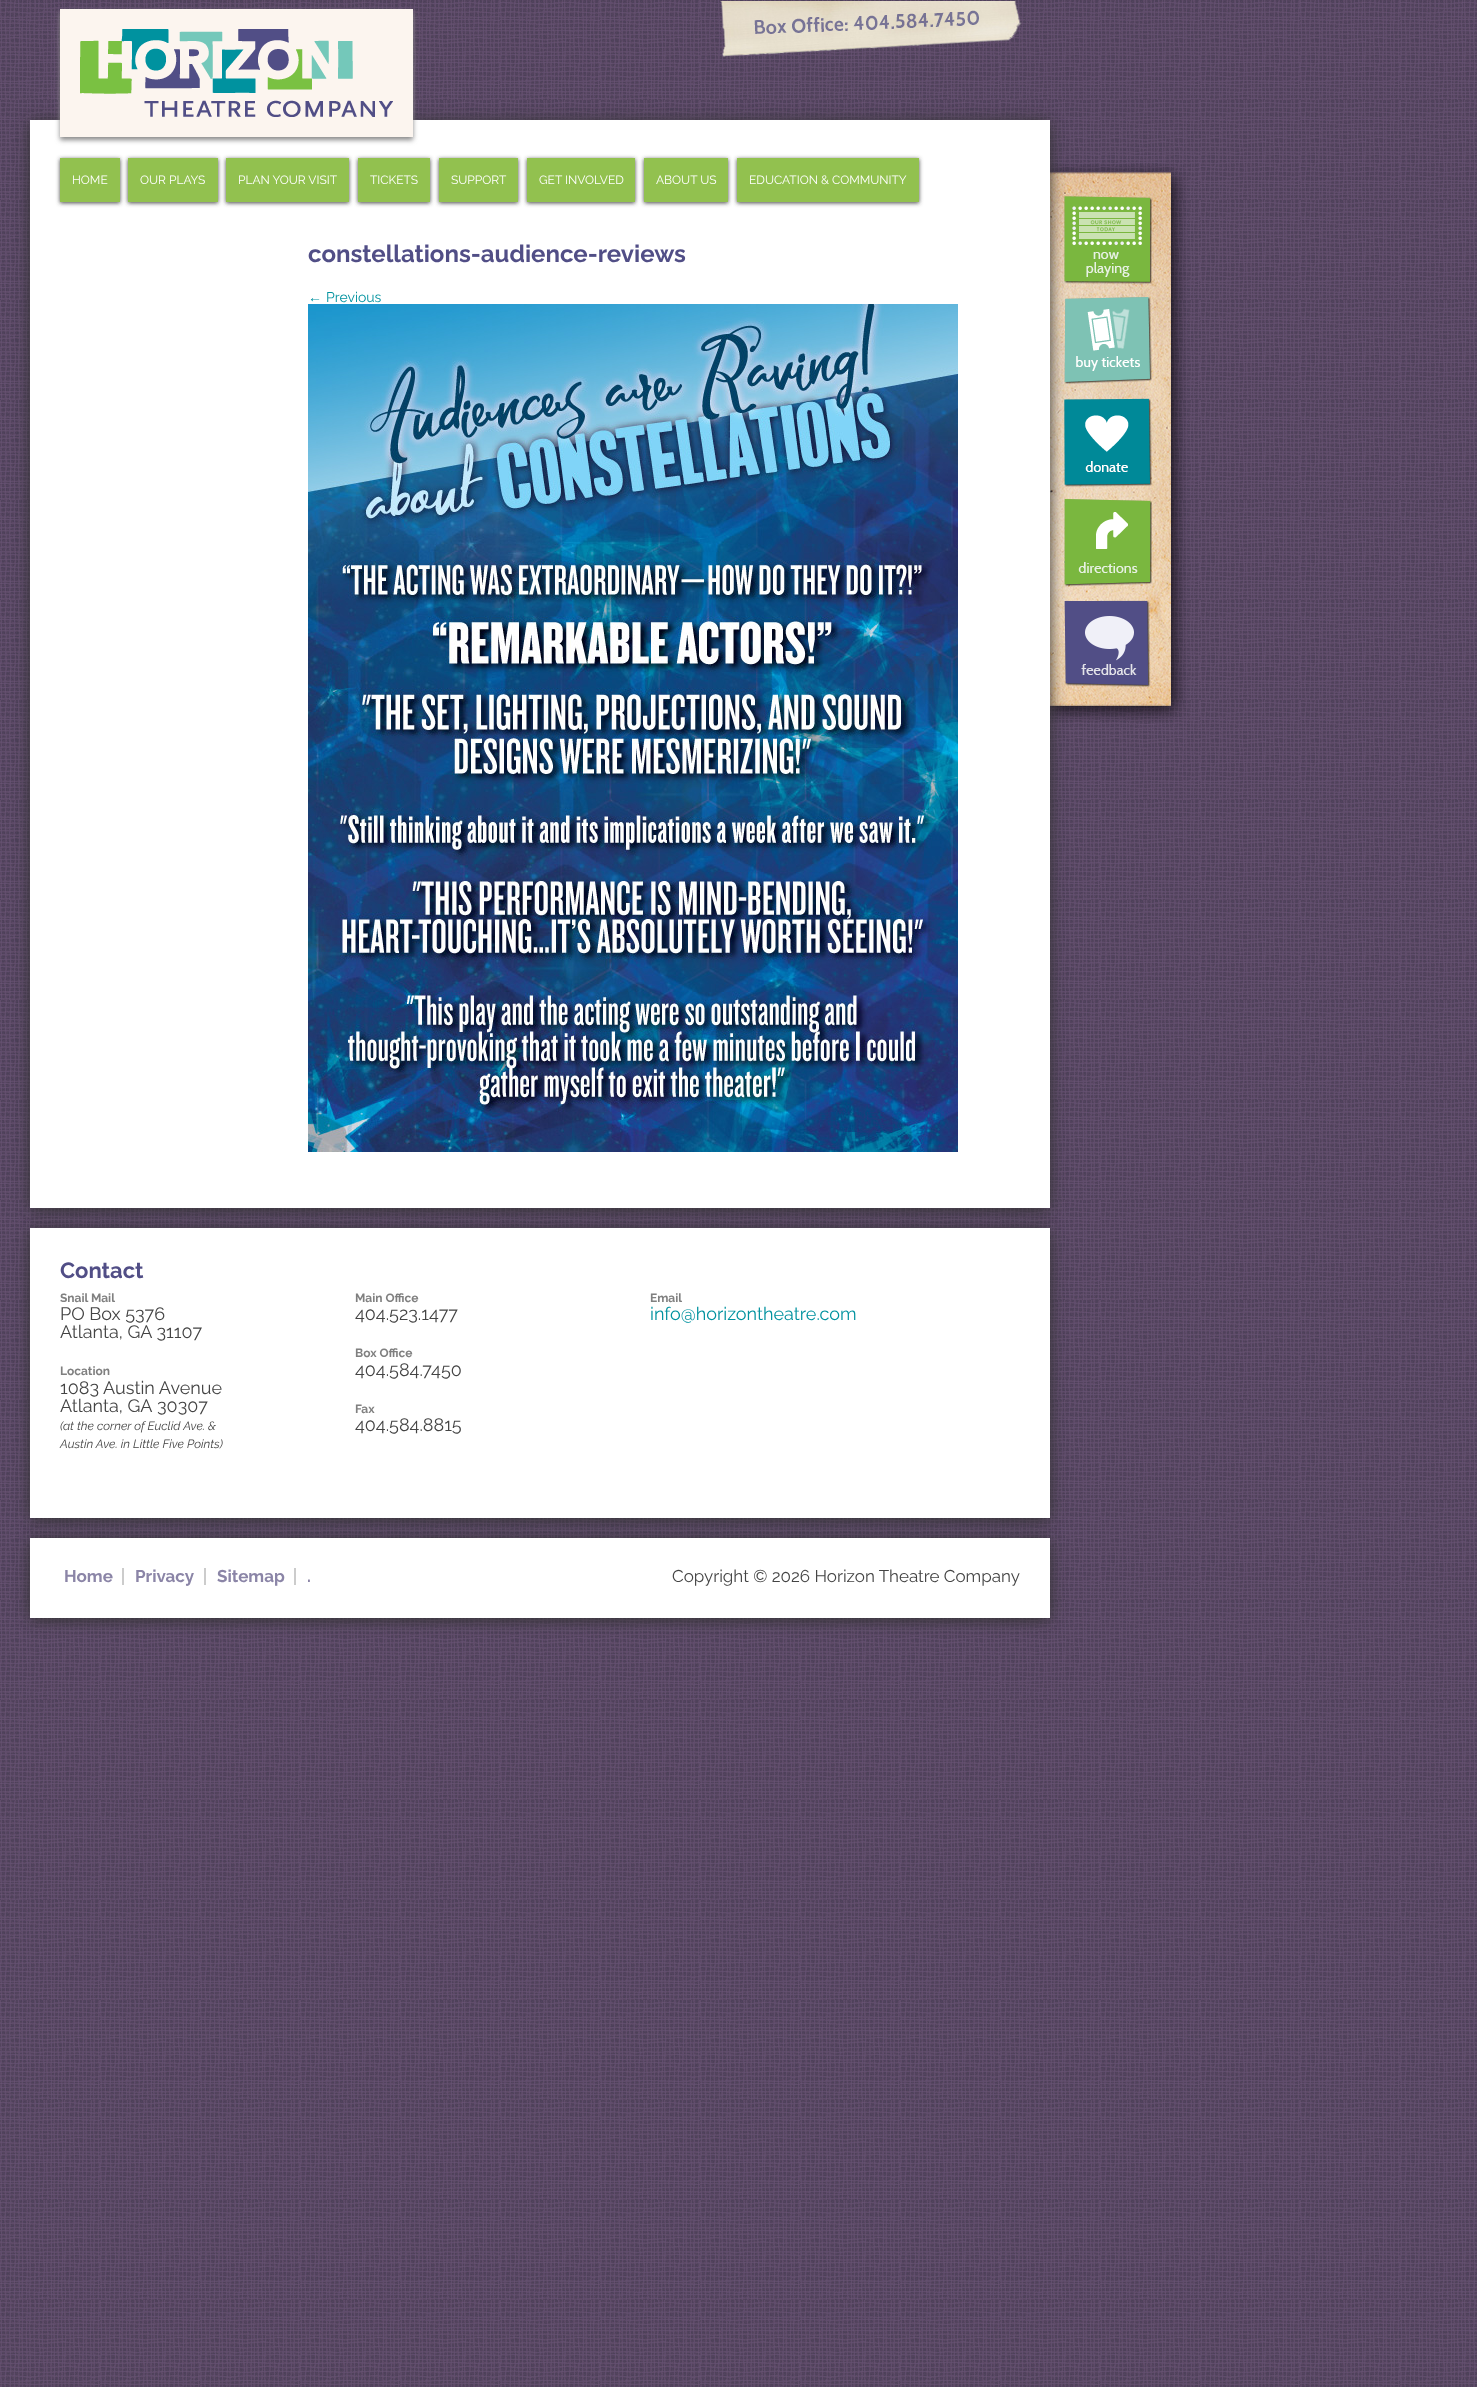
<svg xmlns="http://www.w3.org/2000/svg" width="1477" height="2387" viewBox="0 0 1477 2387">
  <defs>
    <filter id="blur1" x="-50%" y="-200%" width="200%" height="500%"><feGaussianBlur stdDeviation="8"/></filter>
    <filter id="blur2" x="-50%" y="-200%" width="200%" height="500%"><feGaussianBlur stdDeviation="2.5"/></filter>
    <filter id="blur3" x="-50%" y="-200%" width="200%" height="500%"><feGaussianBlur stdDeviation="2"/></filter>
  </defs>
  <rect width="100%" height="100%" fill="#ffffff"/>
  <image x="0" y="0" width="1477" height="2387" href="img1.png"/>
  <image x="1050" y="164" width="137" height="558" href="img5.png"/>
  <rect x="30" y="122" width="1020" height="1088" fill="#333333" filter="url(#blur1)"/>
  <rect x="30" y="120" width="1020" height="1088" fill="#ffffff"/>
  <rect x="60" y="12" width="353" height="128" fill="#888888" filter="url(#blur2)"/>
  <rect x="60" y="9" width="353" height="128" fill="#fcf5ef"/>
  <image x="80" y="29" width="313" height="88" href="img2.png"/>
  <image x="720" y="1" width="302" height="56" href="img3.png"/>
  <rect x="60" y="159" width="60" height="44" fill="#444444" filter="url(#blur3)"/>
  <rect x="60" y="158" width="60" height="44" fill="#92c14f"/>
  <text x="72" y="184" font-family="Raleway" font-size="12" fill="#ffffff">HOME</text>
  <rect x="128" y="159" width="90" height="44" fill="#444444" filter="url(#blur3)"/>
  <rect x="128" y="158" width="90" height="44" fill="#92c14f"/>
  <text x="140" y="184" font-family="Raleway" font-size="12" fill="#ffffff">OUR PLAYS</text>
  <rect x="226" y="159" width="123" height="44" fill="#444444" filter="url(#blur3)"/>
  <rect x="226" y="158" width="123" height="44" fill="#92c14f"/>
  <text x="238" y="184" font-family="Raleway" font-size="12" fill="#ffffff">PLAN YOUR VISIT</text>
  <rect x="358" y="159" width="72" height="44" fill="#444444" filter="url(#blur3)"/>
  <rect x="358" y="158" width="72" height="44" fill="#92c14f"/>
  <text x="370" y="184" font-family="Raleway" font-size="12" fill="#ffffff">TICKETS</text>
  <rect x="439" y="159" width="79" height="44" fill="#444444" filter="url(#blur3)"/>
  <rect x="439" y="158" width="79" height="44" fill="#92c14f"/>
  <text x="451" y="184" font-family="Raleway" font-size="12" fill="#ffffff">SUPPORT</text>
  <rect x="527" y="159" width="108" height="44" fill="#444444" filter="url(#blur3)"/>
  <rect x="527" y="158" width="108" height="44" fill="#92c14f"/>
  <text x="539" y="184" font-family="Raleway" font-size="12" fill="#ffffff">GET INVOLVED</text>
  <rect x="644" y="159" width="84" height="44" fill="#444444" filter="url(#blur3)"/>
  <rect x="644" y="158" width="84" height="44" fill="#92c14f"/>
  <text x="656" y="184" font-family="Raleway" font-size="12" fill="#ffffff">ABOUT US</text>
  <rect x="737" y="159" width="182" height="44" fill="#444444" filter="url(#blur3)"/>
  <rect x="737" y="158" width="182" height="44" fill="#92c14f"/>
  <text x="749" y="184" font-family="Raleway" font-size="12" fill="#ffffff">EDUCATION &amp; COMMUNITY</text>
  <text x="308" y="262" font-family="Raleway" font-size="24" font-weight="bold" fill="#514e86">constellations-audience-reviews</text>
  <text x="308" y="302" font-family="Liberation Sans" font-size="14" fill="#00929f">←</text>
  <text x="326" y="302" font-family="Raleway" font-size="14" fill="#00929f">Previous</text>
  <image x="308" y="304" width="650" height="848" href="img4.png"/>
  <image x="1064" y="196" width="88" height="88" href="img6.png"/>
  <image x="1064" y="297" width="88" height="87" href="img7.png"/>
  <image x="1064" y="398" width="88" height="89" href="img8.png"/>
  <image x="1064" y="499" width="88" height="88" href="img9.png"/>
  <image x="1064" y="600" width="87" height="87" href="img10.png"/>
  <rect x="30" y="1230" width="1020" height="290" fill="#333333" filter="url(#blur1)"/>
  <rect x="30" y="1228" width="1020" height="290" fill="#ffffff"/>
  <text x="60" y="1278" font-family="Raleway" font-size="22" font-weight="bold" fill="#514e86">Contact</text>
  <text x="60" y="1302" font-family="Raleway" font-size="12" font-weight="bold" fill="#808080">Snail Mail</text>
  <text x="60" y="1320" font-family="Raleway" font-size="18" fill="#444444">PO Box 5376</text>
  <text x="60" y="1338" font-family="Raleway" font-size="18" fill="#444444">Atlanta, GA 31107</text>
  <text x="60" y="1375" font-family="Raleway" font-size="12" font-weight="bold" fill="#808080">Location</text>
  <text x="60" y="1394" font-family="Raleway" font-size="18" fill="#444444">1083 Austin Avenue</text>
  <text x="60" y="1412" font-family="Raleway" font-size="18" fill="#444444">Atlanta, GA</text>
  <text x="157" y="1412" font-family="Raleway" font-size="18" fill="#444444">30307</text>
  <text x="60" y="1430" font-family="Raleway" font-size="12" font-style="italic" fill="#444444">(at the corner of Euclid Ave. &amp;</text>
  <text x="60" y="1448" font-family="Raleway" font-size="12" font-style="italic" fill="#444444">Austin Ave. in Little Five Points)</text>
  <text x="355" y="1302" font-family="Raleway" font-size="12" font-weight="bold" fill="#808080">Main Office</text>
  <text x="355" y="1320" font-family="Raleway" font-size="18" fill="#444444">404.523.1477</text>
  <text x="355" y="1357" font-family="Raleway" font-size="12" font-weight="bold" fill="#808080">Box Office</text>
  <text x="355" y="1376" font-family="Raleway" font-size="18" fill="#444444">404.584.7450</text>
  <text x="355" y="1413" font-family="Raleway" font-size="12" font-weight="bold" fill="#808080">Fax</text>
  <text x="355" y="1431" font-family="Raleway" font-size="18" fill="#444444">404.584.8815</text>
  <text x="650" y="1302" font-family="Raleway" font-size="12" font-weight="bold" fill="#808080">Email</text>
  <text x="650" y="1320" font-family="Raleway" font-size="18" fill="#00929f">info@horizontheatre.com</text>
  <rect x="30" y="1540" width="1020" height="80" fill="#333333" filter="url(#blur1)"/>
  <rect x="30" y="1538" width="1020" height="80" fill="#ffffff"/>
  <rect x="122" y="1568" width="2" height="17" fill="#cccccc"/>
  <text x="64" y="1582" font-family="Raleway" font-size="17" font-weight="bold" fill="#8b85a7">Home</text>
  <rect x="204" y="1568" width="2" height="17" fill="#cccccc"/>
  <text x="135" y="1582" font-family="Raleway" font-size="17" font-weight="bold" fill="#8b85a7">Privacy</text>
  <rect x="294" y="1568" width="2" height="17" fill="#cccccc"/>
  <text x="217" y="1582" font-family="Raleway" font-size="17" font-weight="bold" fill="#8b85a7">Sitemap</text>
  <text x="307" y="1582" font-family="Raleway" font-size="17" font-weight="bold" fill="#8b85a7">.</text>
  <text x="672" y="1582" font-family="Raleway" font-size="17" fill="#444444">Copyright © 2026 Horizon Theatre Company</text>
</svg>
